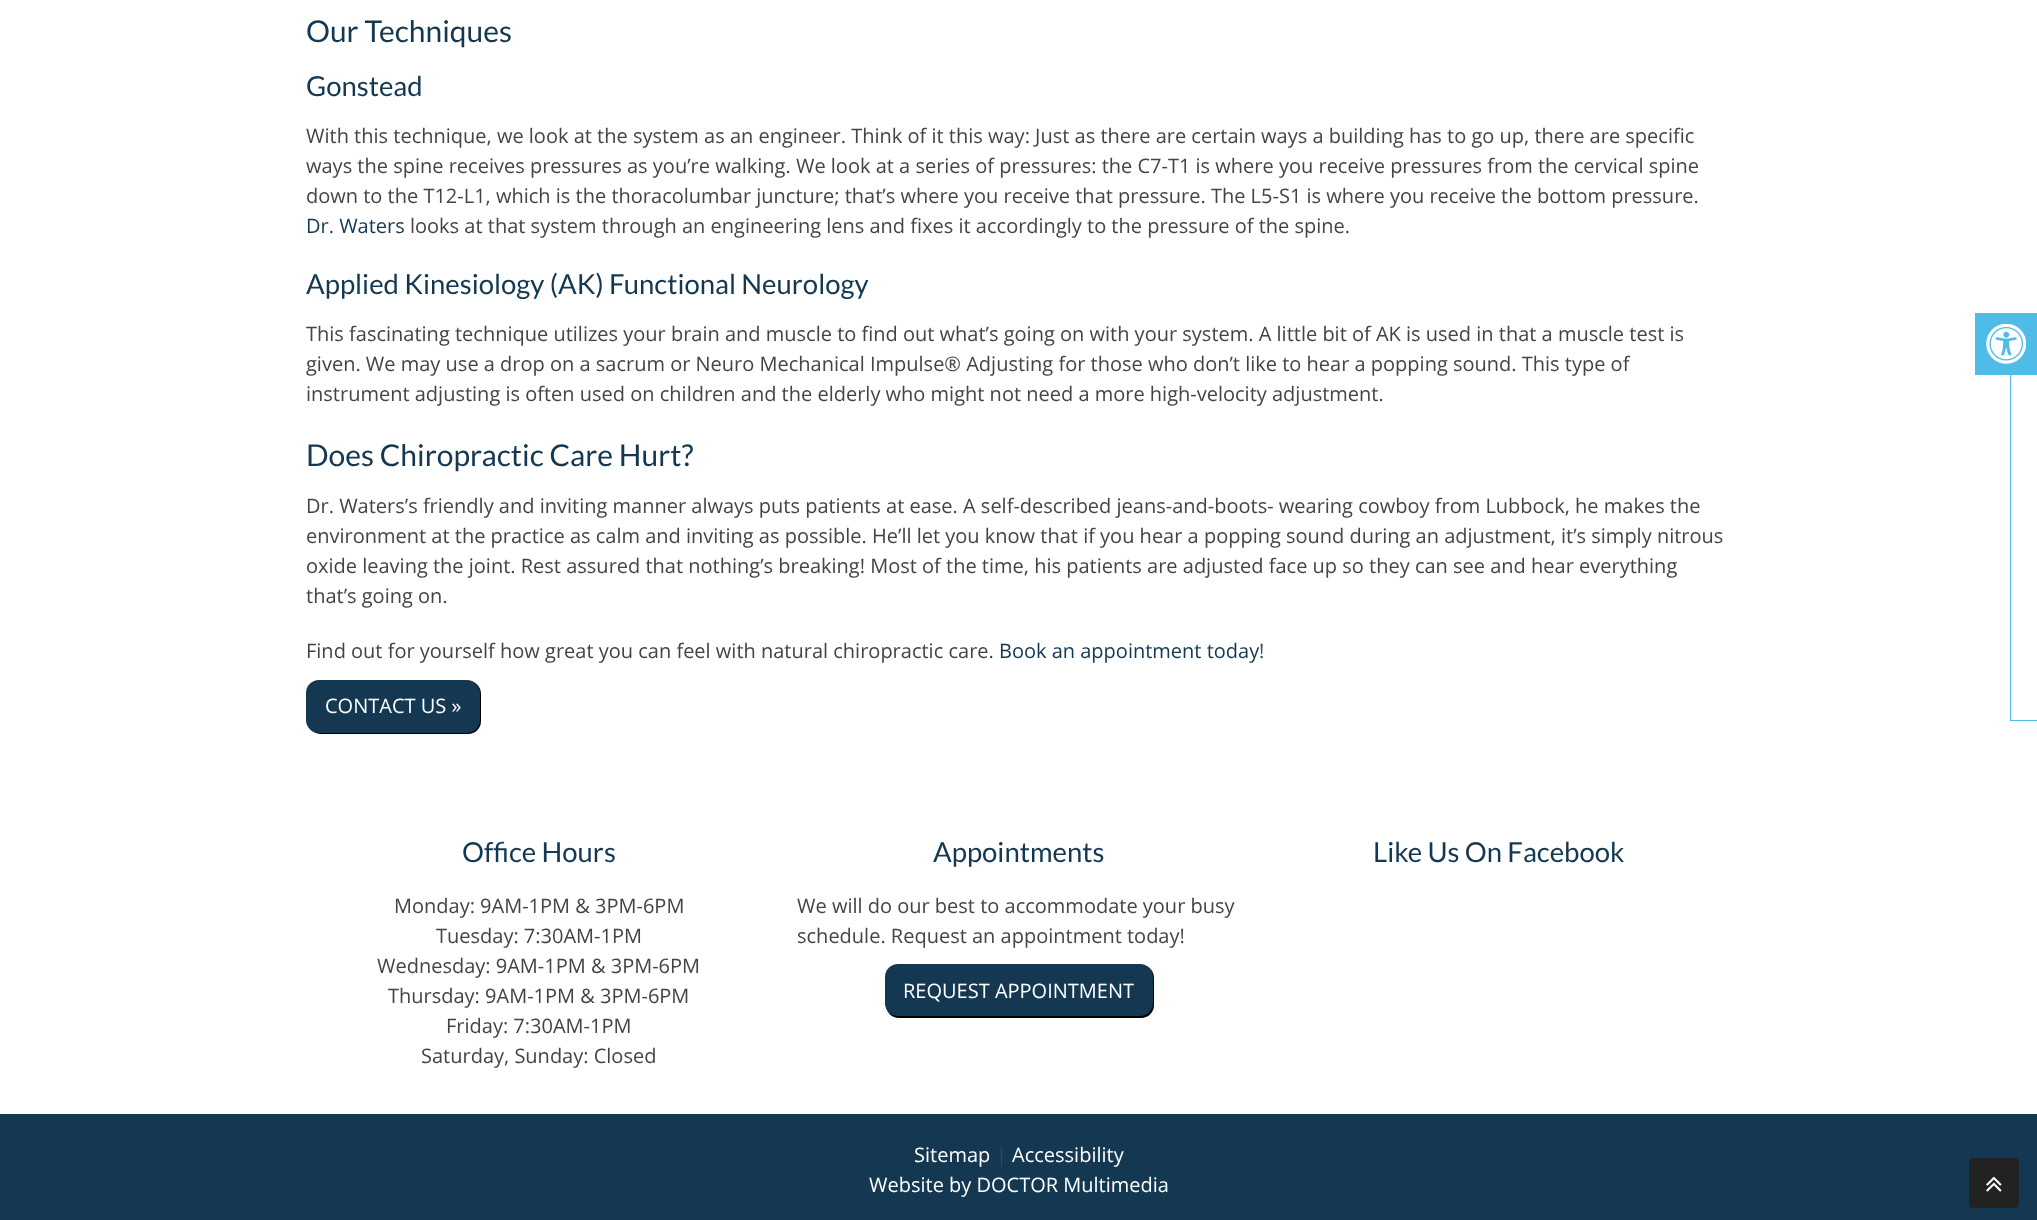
<svg xmlns="http://www.w3.org/2000/svg" width="2037" height="1220" viewBox="0 0 2037 1220">
  <defs>
    <filter id="blur1" x="-50%" y="-200%" width="200%" height="500%"><feGaussianBlur stdDeviation="0.5"/></filter>
  </defs>
  <rect width="100%" height="100%" fill="#ffffff"/>
  <text x="306" y="42" font-family="Lato" font-size="30" fill="#143852">Our Techniques</text>
  <text x="306" y="96" font-family="Lato" font-size="27.5" fill="#143852">Gonstead</text>
  <text x="306" y="143" font-family="Open Sans" font-size="20" fill="#444444">With this technique, we look at the system as an engineer. Think of it this way: Just as there are certain ways a building has to go up, there are specific</text>
  <text x="306" y="173" font-family="Open Sans" font-size="20" fill="#444444">ways the spine receives pressures as you’re walking. We look at a series of pressures: the C7-T1 is where you receive pressures from the cervical spine</text>
  <text x="306" y="203" font-family="Open Sans" font-size="20" fill="#444444">down to the T12-L1, which is the thoracolumbar juncture; that’s where you receive that pressure. The L5-S1 is where you receive the bottom pressure.</text>
  <text x="306" y="233" font-family="Open Sans" font-size="20" fill="#143852">Dr. Waters</text>
  <text x="410" y="233" font-family="Open Sans" font-size="20" fill="#444444">looks at that system through an engineering lens and fixes it accordingly to the pressure of the spine.</text>
  <text x="306" y="294" font-family="Lato" font-size="27.5" fill="#143852">Applied Kinesiology (AK) Functional Neurology</text>
  <text x="306" y="341" font-family="Open Sans" font-size="20" fill="#444444">This fascinating technique utilizes your brain and muscle to find out what’s going on with your system. A little bit of AK is used in that a muscle test is</text>
  <text x="306" y="371" font-family="Open Sans" font-size="20" fill="#444444">given. We may use a drop on a sacrum or Neuro Mechanical Impulse® Adjusting for those who don’t like to hear a popping sound. This type of</text>
  <text x="306" y="401" font-family="Open Sans" font-size="20" fill="#444444">instrument adjusting is often used on children and the elderly who might not need a more high-velocity adjustment.</text>
  <text x="306" y="466" font-family="Lato" font-size="30" fill="#143852">Does Chiropractic Care Hurt?</text>
  <text x="306" y="513" font-family="Open Sans" font-size="20" fill="#444444">Dr. Waters’s friendly and inviting manner always puts patients at ease. A self-described jeans-and-boots- wearing cowboy from Lubbock, he makes the</text>
  <text x="306" y="543" font-family="Open Sans" font-size="20" fill="#444444">environment at the practice as calm and inviting as possible. He’ll let you know that if you hear a popping sound during an adjustment, it’s simply nitrous</text>
  <text x="306" y="573" font-family="Open Sans" font-size="20" fill="#444444">oxide leaving the joint. Rest assured that nothing’s breaking! Most of the time, his patients are adjusted face up so they can see and hear everything</text>
  <text x="306" y="603" font-family="Open Sans" font-size="20" fill="#444444">that’s going on.</text>
  <text x="306" y="658" font-family="Open Sans" font-size="20" fill="#444444">Find out for yourself how great you can feel with natural chiropractic care.</text>
  <text x="999" y="658" font-family="Open Sans" font-size="20" fill="#143852">Book an appointment today</text>
  <text x="1259" y="658" font-family="Open Sans" font-size="20" fill="#444444">!</text>
  <rect x="308" y="681" width="173" height="53" rx="13" fill="#000000" filter="url(#blur1)"/>
  <rect x="306" y="680" width="174" height="53" rx="13" fill="#143852"/>
  <text x="325" y="713" font-family="Open Sans" font-size="20" fill="#ffffff">CONTACT US »</text>
  <text x="462" y="862" font-family="Lato" font-size="27.5" fill="#143852">Office Hours</text>
  <text x="394" y="913" font-family="Open Sans" font-size="20" fill="#444444">Monday: 9AM-1PM &amp; 3PM-6PM</text>
  <text x="436" y="943" font-family="Open Sans" font-size="20" fill="#444444">Tuesday: 7:30AM-1PM</text>
  <text x="377" y="973" font-family="Open Sans" font-size="20" fill="#444444">Wednesday: 9AM-1PM &amp; 3PM-6PM</text>
  <text x="388" y="1003" font-family="Open Sans" font-size="20" fill="#444444">Thursday: 9AM-1PM &amp; 3PM-6PM</text>
  <text x="446" y="1033" font-family="Open Sans" font-size="20" fill="#444444">Friday: 7:30AM-1PM</text>
  <text x="421" y="1063" font-family="Open Sans" font-size="20" fill="#444444">Saturday, Sunday: Closed</text>
  <text x="933" y="862" font-family="Lato" font-size="27.5" fill="#143852">Appointments</text>
  <text x="797" y="913" font-family="Open Sans" font-size="20" fill="#444444">We will do our best to accommodate your busy</text>
  <text x="797" y="943" font-family="Open Sans" font-size="20" fill="#444444">schedule. Request an appointment today!</text>
  <rect x="886" y="965" width="268" height="53" rx="13" fill="#000000" filter="url(#blur1)"/>
  <rect x="885" y="964" width="268" height="52" rx="13" fill="#143852"/>
  <text x="903" y="998" font-family="Open Sans" font-size="20" fill="#ffffff">REQUEST APPOINTMENT</text>
  <text x="1373" y="862" font-family="Lato" font-size="27.5" fill="#143852">Like Us On Facebook</text>
  <rect x="0" y="1114" width="2037" height="106" fill="#143852"/>
  <text x="914" y="1162" font-family="Open Sans" font-size="20" fill="#ffffff">Sitemap</text>
  <text x="996" y="1162" font-family="Open Sans" font-size="20" fill="#444444">|</text>
  <text x="1012" y="1162" font-family="Open Sans" font-size="20" fill="#ffffff">Accessibility</text>
  <text x="869" y="1192" font-family="Open Sans" font-size="20" fill="#ffffff">Website by DOCTOR Multimedia</text>
  <rect x="2010.5" y="313.5" width="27" height="407" fill="none" stroke="#4ebbe8"/>
  <rect x="1975" y="313" width="62" height="62" fill="#4ebbe8"/>
  <image x="1986" y="324" width="40" height="40" href="img1.png"/>
  <rect x="1969" y="1158" width="50" height="50" rx="4" fill="#222222"/>
  <image x="1986" y="1176" width="16" height="16" href="img2.png"/>
</svg>
